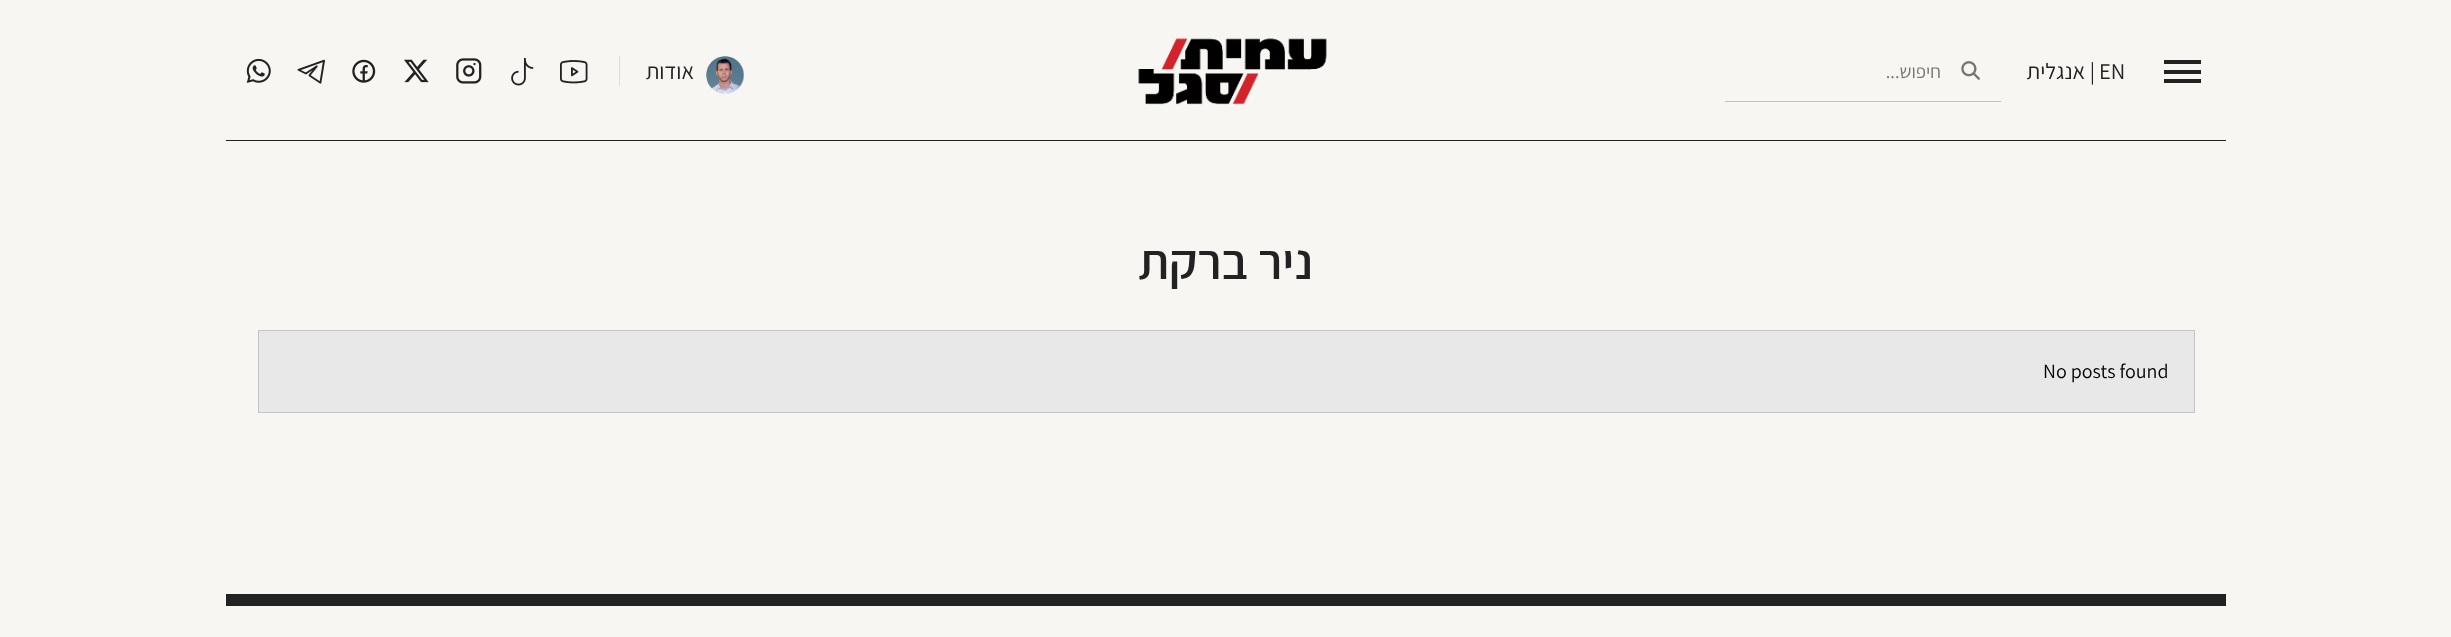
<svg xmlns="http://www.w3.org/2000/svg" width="2451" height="637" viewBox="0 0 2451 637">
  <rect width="100%" height="100%" fill="#f7f6f2"/>
  <rect x="226" y="140" width="2000" height="1" fill="#222222"/>
  <rect x="2164" y="60" width="37" height="4" fill="#222222"/>
  <rect x="2164" y="70" width="37" height="4" fill="#222222"/>
  <rect x="2164" y="79" width="37" height="4" fill="#222222"/>
  <text x="2099" y="79" font-family="Assistant" font-size="22.5" fill="#222222">EN</text>
  <text x="2095" y="79" font-family="Assistant" font-size="22.5" direction="rtl" fill="#222222">| אנגלית</text>
  <rect x="1725" y="101" width="276" height="1" fill="#c1c1be"/>
  <image x="1961" y="61" width="19" height="19" href="img1.png"/>
  <text x="1941" y="78" font-family="Assistant" font-size="19" direction="rtl" fill="#777775">חיפוש...</text>
  <image x="1138" y="38" width="189" height="67" href="img2.png"/>
  <rect x="619" y="56" width="1" height="30" fill="#dddddd"/>
  <image x="706" y="56" width="38" height="38" href="img3.png"/>
  <text x="694" y="79" font-family="Assistant" font-size="22.5" direction="rtl" fill="#222222">אודות</text>
  <image x="560" y="60" width="28" height="24" href="img4.png"/>
  <image x="511" y="58" width="23" height="28" href="img5.png"/>
  <image x="456" y="58" width="26" height="26" href="img6.png"/>
  <image x="404" y="59" width="25" height="24" href="img7.png"/>
  <image x="352" y="59" width="24" height="24" href="img8.png"/>
  <image x="297" y="59" width="28" height="25" href="img9.png"/>
  <image x="246" y="58" width="25" height="25" href="img10.png"/>
  <text x="1313" y="279" font-family="Assistant" font-size="50" font-weight="600" direction="rtl" fill="#222222">ניר ברקת</text>
  <rect x="258.5" y="330.5" width="1936" height="82" fill="#e8e8e8" stroke="#c4c4c4"/>
  <text x="2043" y="378" font-family="Assistant" font-size="20" fill="#000000">No posts found</text>
  <rect x="226" y="594" width="2000" height="12" fill="#222222"/>
</svg>
